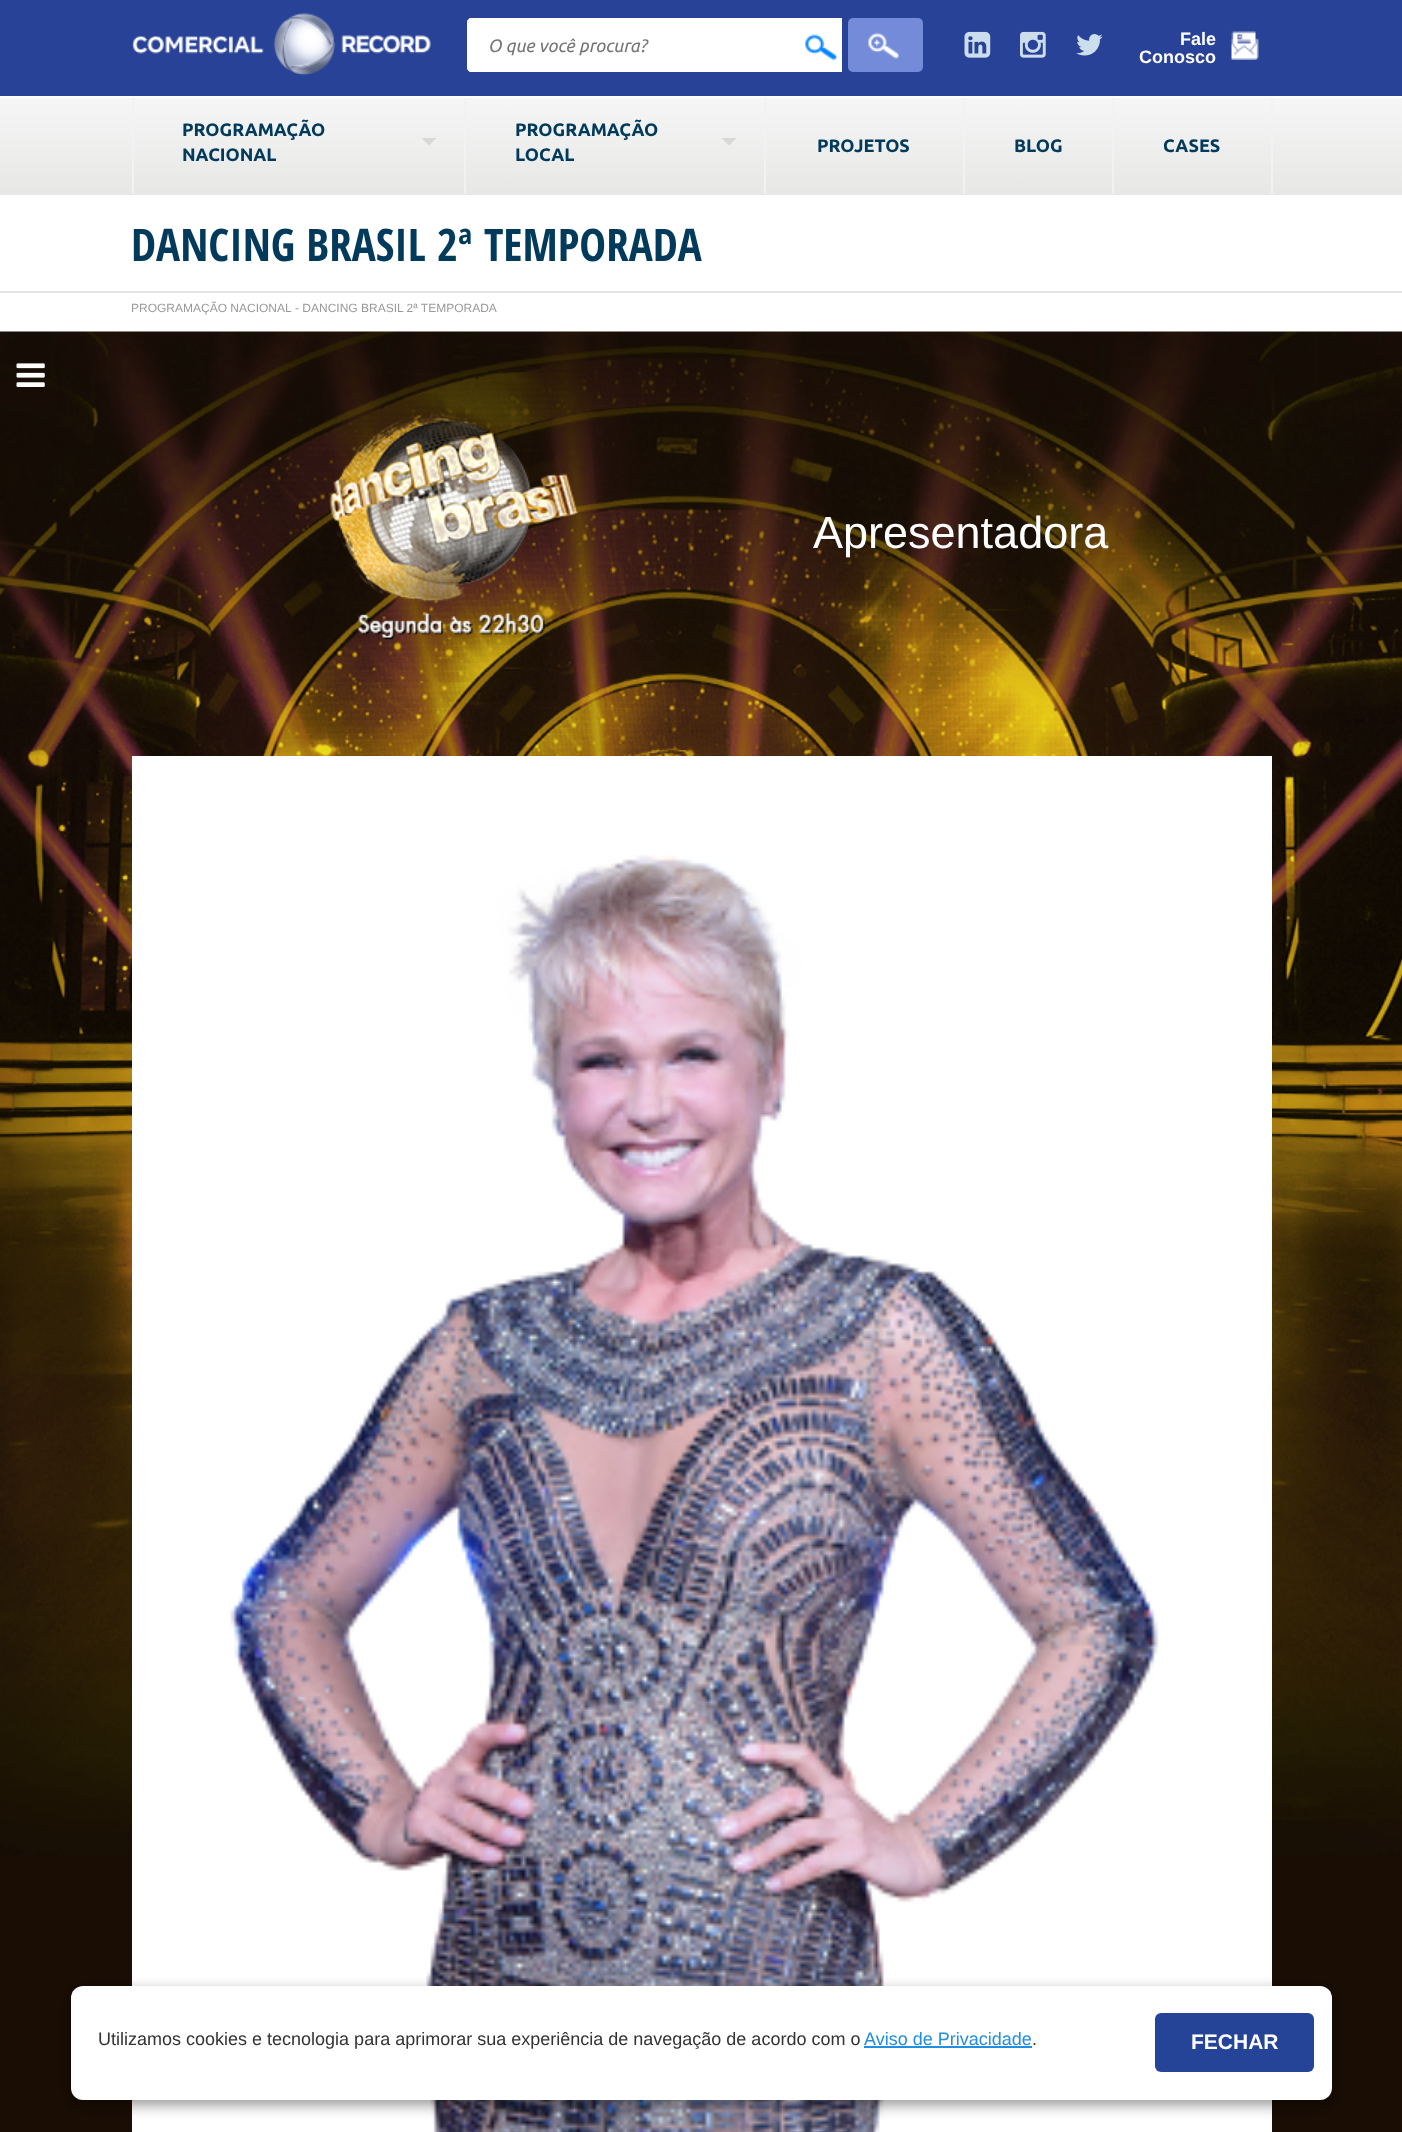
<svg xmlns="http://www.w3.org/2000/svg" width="1402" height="2132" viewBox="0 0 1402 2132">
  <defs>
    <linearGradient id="g1" gradientUnits="userSpaceOnUse" x1="701" y1="97" x2="701" y2="195"><stop offset="0" stop-color="#f6f6f6"/><stop offset="1" stop-color="#e7e7e6"/></linearGradient>
    <filter id="blur1" x="-50%" y="-200%" width="200%" height="500%"><feGaussianBlur stdDeviation="7"/></filter>
  </defs>
  <rect width="100%" height="100%" fill="#ffffff"/>
  <rect x="0" y="0" width="1402" height="96" fill="#284297"/>
  <image x="132" y="13" width="299" height="63" href="img1.png"/>
  <path d="M472 18H842V72H472C469 72 467 70 467 67V23C467 20 469 18 472 18Z" fill="#ffffff"/>
  <path d="M472 18H797V72H472C469 72 467 70 467 67V23C467 20 469 18 472 18Z" fill="#ffffff"/>
  <text x="488" y="52" font-family="Ubuntu" font-size="18" font-style="italic" fill="#757575">O que você procura?</text>
  <image x="805" y="34" width="32" height="27" href="img2.png"/>
  <rect x="848" y="18" width="75" height="54" rx="5" fill="#748bd9"/>
  <image x="868" y="32" width="31" height="27" href="img3.png"/>
  <image x="964" y="31" width="27" height="27" href="img4.png"/>
  <image x="1020" y="31" width="26" height="27" href="img5.png"/>
  <image x="1076" y="34" width="27" height="22" href="img6.png"/>
  <text x="1180" y="45" font-family="Liberation Sans" font-size="18" font-weight="bold" fill="#ffffff">Fale</text>
  <image x="1231" y="31" width="28" height="29" href="img7.png"/>
  <text x="1139" y="63" font-family="Liberation Sans" font-size="18" font-weight="bold" fill="#ffffff">Conosco</text>
  <rect x="0" y="98" width="1402" height="97" fill="url(#g1)"/>
  <rect x="464" y="98" width="2" height="96" fill="#f2f2f2"/>
  <rect x="132" y="98" width="2" height="96" fill="#f2f2f2"/>
  <text x="182" y="136" font-family="Ubuntu" font-size="18" font-weight="bold" fill="#013a5b">PROGRAMAÇÃO</text>
  <path d="M421.5 138H436.5L429 145.5Z" fill="#d8d8d7"/>
  <text x="182" y="161" font-family="Ubuntu" font-size="18" font-weight="bold" fill="#013a5b">NACIONAL</text>
  <rect x="764" y="98" width="2" height="96" fill="#f2f2f2"/>
  <text x="515" y="136" font-family="Ubuntu" font-size="18" font-weight="bold" fill="#013a5b">PROGRAMAÇÃO</text>
  <path d="M721.5 138H736.5L729 145.5Z" fill="#d8d8d7"/>
  <text x="515" y="161" font-family="Ubuntu" font-size="18" font-weight="bold" fill="#013a5b">LOCAL</text>
  <rect x="963" y="98" width="2" height="96" fill="#f2f2f2"/>
  <text x="817" y="152" font-family="Ubuntu" font-size="18" font-weight="bold" fill="#013a5b">PROJETOS</text>
  <rect x="1112" y="98" width="2" height="96" fill="#f2f2f2"/>
  <text x="1014" y="152" font-family="Ubuntu" font-size="18" font-weight="bold" fill="#013a5b">BLOG</text>
  <rect x="1271" y="98" width="2" height="96" fill="#f2f2f2"/>
  <text x="1163" y="152" font-family="Ubuntu" font-size="18" font-weight="bold" fill="#013a5b">CASES</text>
  <rect x="0" y="291" width="1402" height="2" fill="#e4e4e5"/>
  <text x="131" y="261" font-family="Open Sans Condensed" font-size="45" font-weight="bold" fill="#013a5b">DANCING BRASIL 2ª TEMPORADA</text>
  <text x="131" y="312" font-family="Liberation Sans" font-size="12" fill="#999999">PROGRAMAÇÃO NACIONAL</text>
  <text x="295" y="312" font-family="Liberation Sans" font-size="12" fill="#999999">- DANCING BRASIL 2ª TEMPORADA</text>
  <rect x="0" y="1855" width="1402" height="277" fill="#190d04"/>
  <image x="0" y="331" width="1402" height="1524" href="img8.png"/>
  <image x="16" y="363" width="29" height="24" href="img9.png"/>
  <image x="329" y="411" width="249" height="229" href="img10.png"/>
  <text x="813" y="548" font-family="Liberation Sans" font-size="45" fill="#ffffff">Apresentadora</text>
  <rect x="132" y="756" width="1140" height="1376" fill="#ffffff"/>
  <image x="230" y="855" width="929" height="1277" href="img11.png"/>
  <rect x="71" y="1991" width="1261" height="114" rx="12" fill="#000000" fill-opacity="0.41" filter="url(#blur1)"/>
  <rect x="71" y="1986" width="1261" height="114" rx="12" fill="#ffffff"/>
  <text x="98" y="2045" font-family="Liberation Sans" font-size="18" fill="#333333">Utilizamos cookies e tecnologia para aprimorar sua experiência de navegação de acordo com o</text>
  <text x="864" y="2045" font-family="Liberation Sans" font-size="18" fill="#218ee1">Aviso de Privacidade</text>
  <rect x="864" y="2046" width="168" height="2" fill="#218ee1"/>
  <text x="1032" y="2045" font-family="Liberation Sans" font-size="18" fill="#333333">.</text>
  <rect x="1155" y="2013" width="159" height="59" rx="6" fill="#254497"/>
  <text x="1191" y="2049" font-family="Liberation Sans" font-size="21" font-weight="bold" fill="#ffffff">FECHAR</text>
</svg>
